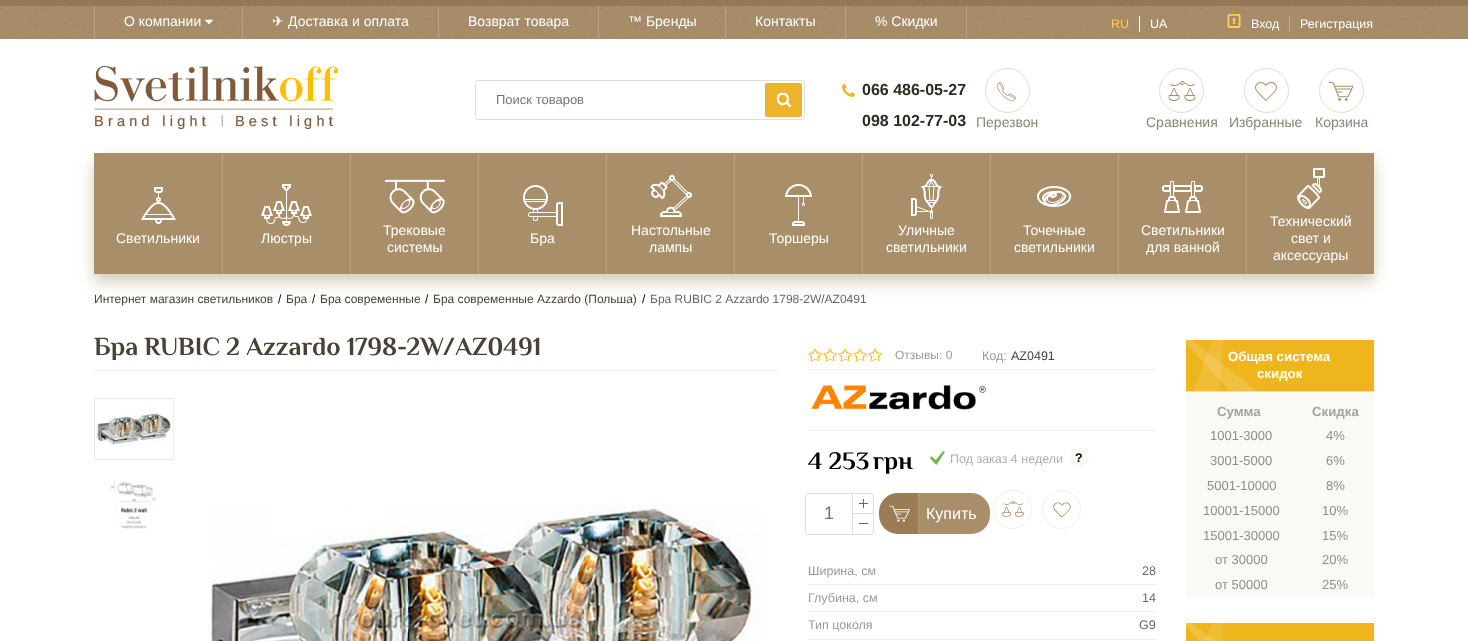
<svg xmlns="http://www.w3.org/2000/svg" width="1468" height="641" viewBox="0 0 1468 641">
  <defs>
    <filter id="blur1" x="-50%" y="-200%" width="200%" height="500%"><feGaussianBlur stdDeviation="7.5"/></filter>
  </defs>
  <rect width="100%" height="100%" fill="#ffffff"/>
  <rect x="0" y="0" width="1468" height="6" fill="#977755"/>
  <image x="35" y="1" width="1406" height="4" href="img1.png"/>
  <image x="0" y="6" width="1468" height="33" href="img2.png"/>
  <rect x="966" y="6" width="1" height="33" fill="#b9a184"/>
  <rect x="94" y="6" width="1" height="33" fill="#b9a184"/>
  <text x="124" y="26" font-family="Arimo" font-size="14" fill="#ffffff">О компании</text>
  <image x="205" y="19" width="8" height="6" href="img3.png"/>
  <rect x="242" y="6" width="1" height="33" fill="#b9a184"/>
  <text x="272" y="26" font-family="DejaVu Sans" font-size="14" fill="#ffffff">✈︎</text>
  <text x="288" y="26" font-family="Arimo" font-size="14" fill="#ffffff">Доставка и оплата</text>
  <rect x="438" y="6" width="1" height="33" fill="#b9a184"/>
  <text x="468" y="26" font-family="Arimo" font-size="14" fill="#ffffff">Возврат товара</text>
  <rect x="598" y="6" width="1" height="33" fill="#b9a184"/>
  <text x="628" y="26" font-family="Arimo" font-size="14" fill="#ffffff">™ Бренды</text>
  <rect x="725" y="6" width="1" height="33" fill="#b9a184"/>
  <text x="755" y="26" font-family="Arimo" font-size="14" fill="#ffffff">Контакты</text>
  <rect x="845" y="6" width="1" height="33" fill="#b9a184"/>
  <text x="875" y="26" font-family="Arimo" font-size="14" fill="#ffffff">% Скидки</text>
  <text x="1111" y="28" font-family="Arimo" font-size="12.5" fill="#ffcc52">RU</text>
  <rect x="1139" y="16" width="1" height="16" fill="#ffffff"/>
  <text x="1150" y="28" font-family="Arimo" font-size="12.5" fill="#ffffff">UA</text>
  <image x="1227" y="14" width="14" height="14" href="img4.png"/>
  <text x="1251" y="28" font-family="Arimo" font-size="12.5" fill="#ffffff">Вход</text>
  <rect x="1289" y="16" width="1" height="16" fill="#beab92"/>
  <text x="1300" y="28" font-family="Arimo" font-size="12.5" fill="#ffffff">Регистрация</text>
  <image x="94" y="66" width="244" height="63" href="img5.png"/>
  <rect x="475.5" y="80.5" width="329" height="39" rx="2.5" fill="none" stroke="#e1ded4"/>
  <text x="496" y="104" font-family="Arimo" font-size="13" fill="#757575">Поиск товаров</text>
  <rect x="765" y="83" width="37" height="34" rx="2" fill="#edb42b"/>
  <image x="776" y="92" width="16" height="16" href="img6.png"/>
  <image x="842" y="84" width="13" height="13" href="img7.png"/>
  <text x="862" y="95" font-family="Arimo" font-size="16" font-weight="bold" fill="#2f2a21">066 486-05-27</text>
  <text x="862" y="126" font-family="Arimo" font-size="16" font-weight="bold" fill="#2f2a21">098 102-77-03</text>
  <circle cx="1007.5" cy="90.5" r="22" fill="none" stroke="#e1ded4"/>
  <image x="997" y="81" width="19" height="20" href="img8.png"/>
  <text x="976" y="127" font-family="Arimo" font-size="14" fill="#8d8375">Перезвон</text>
  <circle cx="1181.5" cy="90.5" r="22" fill="none" stroke="#e1ded4"/>
  <image x="1168" y="81" width="28" height="20" href="img9.png"/>
  <text x="1146" y="127" font-family="Arimo" font-size="14" fill="#8d8375">Сравнения</text>
  <circle cx="1266.5" cy="90.5" r="22" fill="none" stroke="#e1ded4"/>
  <image x="1255" y="82" width="22" height="19" href="img10.png"/>
  <text x="1229" y="127" font-family="Arimo" font-size="14" fill="#8d8375">Избранные</text>
  <circle cx="1341.5" cy="90.5" r="22" fill="none" stroke="#e1ded4"/>
  <image x="1329" y="82" width="25" height="19" href="img11.png"/>
  <text x="1315" y="127" font-family="Arimo" font-size="14" fill="#8d8375">Корзина</text>
  <rect x="94" y="161" width="1280" height="121" fill="#8c6c31" fill-opacity="0.35" filter="url(#blur1)"/>
  <rect x="94" y="153" width="128" height="121" fill="#a98e6a"/>
  <image x="141" y="187" width="35" height="37" href="img12.png"/>
  <text x="116" y="243" font-family="Arimo" font-size="14" fill="#ffffff">Светильники</text>
  <rect x="223" y="153" width="127" height="121" fill="#a98e6a"/>
  <rect x="222" y="153" width="1" height="121" fill="#b9a184"/>
  <image x="261" y="184" width="51" height="42" href="img13.png"/>
  <text x="261" y="243" font-family="Arimo" font-size="14" fill="#ffffff">Люстры</text>
  <rect x="351" y="153" width="127" height="121" fill="#a98e6a"/>
  <rect x="350" y="153" width="1" height="121" fill="#b9a184"/>
  <image x="385" y="179" width="60" height="35" href="img14.png"/>
  <text x="383" y="235" font-family="Arimo" font-size="14" fill="#ffffff">Трековые</text>
  <text x="387" y="252" font-family="Arimo" font-size="14" fill="#ffffff">системы</text>
  <rect x="479" y="153" width="127" height="121" fill="#a98e6a"/>
  <rect x="478" y="153" width="1" height="121" fill="#b9a184"/>
  <image x="523" y="185" width="40" height="41" href="img15.png"/>
  <text x="530" y="243" font-family="Arimo" font-size="14" fill="#ffffff">Бра</text>
  <rect x="607" y="153" width="127" height="121" fill="#a98e6a"/>
  <rect x="606" y="153" width="1" height="121" fill="#b9a184"/>
  <image x="650" y="175" width="42" height="43" href="img16.png"/>
  <text x="631" y="235" font-family="Arimo" font-size="14" fill="#ffffff">Настольные</text>
  <text x="649" y="252" font-family="Arimo" font-size="14" fill="#ffffff">лампы</text>
  <rect x="735" y="153" width="127" height="121" fill="#a98e6a"/>
  <rect x="734" y="153" width="1" height="121" fill="#b9a184"/>
  <image x="785" y="184" width="27" height="42" href="img17.png"/>
  <text x="769" y="243" font-family="Arimo" font-size="14" fill="#ffffff">Торшеры</text>
  <rect x="863" y="153" width="127" height="121" fill="#a98e6a"/>
  <rect x="862" y="153" width="1" height="121" fill="#b9a184"/>
  <image x="911" y="174" width="31" height="45" href="img18.png"/>
  <text x="898" y="235" font-family="Arimo" font-size="14" fill="#ffffff">Уличные</text>
  <text x="886" y="252" font-family="Arimo" font-size="14" fill="#ffffff">светильники</text>
  <rect x="991" y="153" width="127" height="121" fill="#a98e6a"/>
  <rect x="990" y="153" width="1" height="121" fill="#b9a184"/>
  <image x="1037" y="186" width="35" height="21" href="img19.png"/>
  <text x="1023" y="235" font-family="Arimo" font-size="14" fill="#ffffff">Точечные</text>
  <text x="1014" y="252" font-family="Arimo" font-size="14" fill="#ffffff">светильники</text>
  <rect x="1119" y="153" width="127" height="121" fill="#a98e6a"/>
  <rect x="1118" y="153" width="1" height="121" fill="#b9a184"/>
  <image x="1162" y="181" width="41" height="32" href="img20.png"/>
  <text x="1141" y="235" font-family="Arimo" font-size="14" fill="#ffffff">Светильники</text>
  <text x="1146" y="252" font-family="Arimo" font-size="14" fill="#ffffff">для ванной</text>
  <rect x="1247" y="153" width="127" height="121" fill="#a98e6a"/>
  <rect x="1246" y="153" width="1" height="121" fill="#b9a184"/>
  <image x="1297" y="168" width="28" height="41" href="img21.png"/>
  <text x="1270" y="226" font-family="Arimo" font-size="14" fill="#ffffff">Технический</text>
  <text x="1291" y="243" font-family="Arimo" font-size="14" fill="#ffffff">свет и</text>
  <text x="1273" y="260" font-family="Arimo" font-size="14" fill="#ffffff">аксессуары</text>
  <text x="94" y="303" font-family="Arimo" font-size="12" fill="#484234">Интернет магазин светильников</text>
  <text x="278" y="303" font-family="Arimo" font-size="12" fill="#000000">/</text>
  <text x="286" y="303" font-family="Arimo" font-size="12" fill="#484234">Бра</text>
  <text x="312" y="303" font-family="Arimo" font-size="12" fill="#000000">/</text>
  <text x="320" y="303" font-family="Arimo" font-size="12" fill="#484234">Бра современные</text>
  <text x="425" y="303" font-family="Arimo" font-size="12" fill="#000000">/</text>
  <text x="433" y="303" font-family="Arimo" font-size="12" fill="#484234">Бра современные Azzardo (Польша)</text>
  <text x="642" y="303" font-family="Arimo" font-size="12" fill="#000000">/</text>
  <text x="650" y="303" font-family="Arimo" font-size="12" fill="#666666">Бра RUBIC 2 Azzardo 1798-2W/AZ0491</text>
  <text x="94" y="355" word-spacing="-0.5" font-family="Philosopher" font-size="26" font-weight="bold" fill="#484234">Бра RUBIC 2 Azzardo 1798-2W/AZ0491</text>
  <rect x="94" y="370" width="684" height="1" fill="#f1f0e8"/>
  <rect x="94.5" y="398.5" width="79" height="61" fill="none" stroke="#eceae3"/>
  <image x="97" y="413" width="74" height="32" href="img22.png"/>
  <image x="111" y="481" width="46" height="48" href="img23.png"/>
  <image x="208" y="503" width="555" height="138" href="img24.png"/>
  <rect x="808" y="369" width="348" height="1" fill="#f1f0e8"/>
  <image x="808" y="348" width="14" height="14" href="img25.png"/>
  <image x="823" y="348" width="14" height="14" href="img25.png"/>
  <image x="838" y="348" width="14" height="14" href="img25.png"/>
  <image x="853" y="348" width="14" height="14" href="img25.png"/>
  <image x="868" y="348" width="14" height="14" href="img25.png"/>
  <text x="895" y="359" font-family="Arimo" font-size="12" fill="#999999">Отзывы: 0</text>
  <text x="982" y="360" font-family="Arimo" font-size="12.5" fill="#999999">Код:</text>
  <text x="1011" y="360" font-family="Arimo" font-size="12.5" fill="#484234">AZ0491</text>
  <rect x="808" y="430" width="348" height="1" fill="#f1f0e8"/>
  <image x="811" y="385" width="176" height="25" href="img26.png"/>
  <text x="808" y="469" font-family="Philosopher" font-size="25" font-weight="bold" fill="#000000">4 253</text>
  <text x="873" y="469" font-family="Philosopher" font-size="25" font-weight="bold" fill="#000000">грн</text>
  <image x="930" y="451" width="15" height="14" href="img27.png"/>
  <text x="950" y="463" font-family="Arimo" font-size="12.5" fill="#aeaeae">Под заказ 4 недели</text>
  <circle cx="1079" cy="458" r="10" fill="#faf9f4"/>
  <text x="1075" y="462" font-family="Arimo" font-size="12.5" font-weight="bold" fill="#000000">?</text>
  <rect x="805.5" y="493.5" width="68" height="41" rx="2.5" fill="none" stroke="#e1ded4"/>
  <text x="824" y="519" font-family="Liberation Sans" font-size="18" fill="#757575">1</text>
  <rect x="852" y="494" width="1" height="40" fill="#e1ded4"/>
  <rect x="863" y="499" width="1" height="9" fill="#666666"/>
  <rect x="859" y="503" width="9" height="1" fill="#666666"/>
  <rect x="853" y="513" width="20" height="1" fill="#e1ded4"/>
  <rect x="859" y="523" width="9" height="1" fill="#666666"/>
  <path d="M898 493H918V534H898C887.5 534 879 525.5 879 515V512C879 501.5 887.5 493 898 493Z" fill="#9a7d57"/>
  <image x="889" y="505" width="21" height="17" href="img28.png"/>
  <path d="M918 493H971C981.5 493 990 501.5 990 512V515C990 525.5 981.5 534 971 534H918Z" fill="#a98e6a"/>
  <rect x="918" y="493" width="1" height="41" fill="#b39977"/>
  <text x="926" y="519" font-family="Arimo" font-size="16" fill="#ffffff">Купить</text>
  <circle cx="1012.5" cy="509.5" r="19" fill="none" stroke="#f1f0e8"/>
  <image x="1002" y="501" width="22" height="16" href="img29.png"/>
  <circle cx="1061.5" cy="509.5" r="19" fill="none" stroke="#f1f0e8"/>
  <image x="1053" y="502" width="18" height="16" href="img30.png"/>
  <text x="808" y="575" font-family="Arimo" font-size="12.5" fill="#999999">Ширина, см</text>
  <text x="1142" y="575" font-family="Arimo" font-size="12.5" fill="#666666">28</text>
  <rect x="808" y="584" width="348" height="1" fill="#f1f0e8"/>
  <text x="808" y="602" font-family="Arimo" font-size="12.5" fill="#999999">Глубина, см</text>
  <text x="1142" y="602" font-family="Arimo" font-size="12.5" fill="#666666">14</text>
  <rect x="808" y="611" width="348" height="1" fill="#f1f0e8"/>
  <text x="808" y="629" font-family="Arimo" font-size="12.5" fill="#999999">Тип цоколя</text>
  <text x="1139" y="629" font-family="Arimo" font-size="12.5" fill="#666666">G9</text>
  <rect x="808" y="639" width="348" height="1" fill="#f1f0e8"/>
  <rect x="1257" y="340" width="117" height="51" fill="#eeb51c"/>
  <image x="1186" y="340" width="71" height="51" href="img31.png"/>
  <text x="1228" y="361" font-family="Arimo" font-size="13.25" font-weight="bold" fill="#ffffff">Общая система</text>
  <text x="1257" y="378" font-family="Arimo" font-size="13.25" font-weight="bold" fill="#ffffff">скидок</text>
  <rect x="1186" y="392" width="188" height="206" fill="#faf9f4"/>
  <rect x="1185" y="391" width="189" height="1" fill="#e1ded4"/>
  <text x="1217" y="416" font-family="Arimo" font-size="13.25" font-weight="bold" fill="#a2a4a1">Сумма</text>
  <text x="1312" y="416" font-family="Arimo" font-size="13.25" font-weight="bold" fill="#a2a4a1">Скидка</text>
  <text x="1210" y="440" font-family="Arimo" font-size="13" fill="#8d8e90">1001-3000</text>
  <text x="1326" y="440" font-family="Arimo" font-size="13" fill="#8d8e90">4%</text>
  <text x="1210" y="465" font-family="Arimo" font-size="13" fill="#8d8e90">3001-5000</text>
  <text x="1326" y="465" font-family="Arimo" font-size="13" fill="#8d8e90">6%</text>
  <text x="1207" y="490" font-family="Arimo" font-size="13" fill="#8d8e90">5001-10000</text>
  <text x="1326" y="490" font-family="Arimo" font-size="13" fill="#8d8e90">8%</text>
  <text x="1203" y="515" font-family="Arimo" font-size="13" fill="#8d8e90">10001-15000</text>
  <text x="1322" y="515" font-family="Arimo" font-size="13" fill="#8d8e90">10%</text>
  <text x="1203" y="540" font-family="Arimo" font-size="13" fill="#8d8e90">15001-30000</text>
  <text x="1322" y="540" font-family="Arimo" font-size="13" fill="#8d8e90">15%</text>
  <text x="1215" y="564" font-family="Arimo" font-size="13" fill="#8d8e90">от 30000</text>
  <text x="1322" y="564" font-family="Arimo" font-size="13" fill="#8d8e90">20%</text>
  <text x="1215" y="589" font-family="Arimo" font-size="13" fill="#8d8e90">от 50000</text>
  <text x="1322" y="589" font-family="Arimo" font-size="13" fill="#8d8e90">25%</text>
  <rect x="1224" y="623" width="150" height="18" fill="#eeb51c"/>
  <image x="1186" y="623" width="38" height="18" href="img32.png"/>
</svg>
